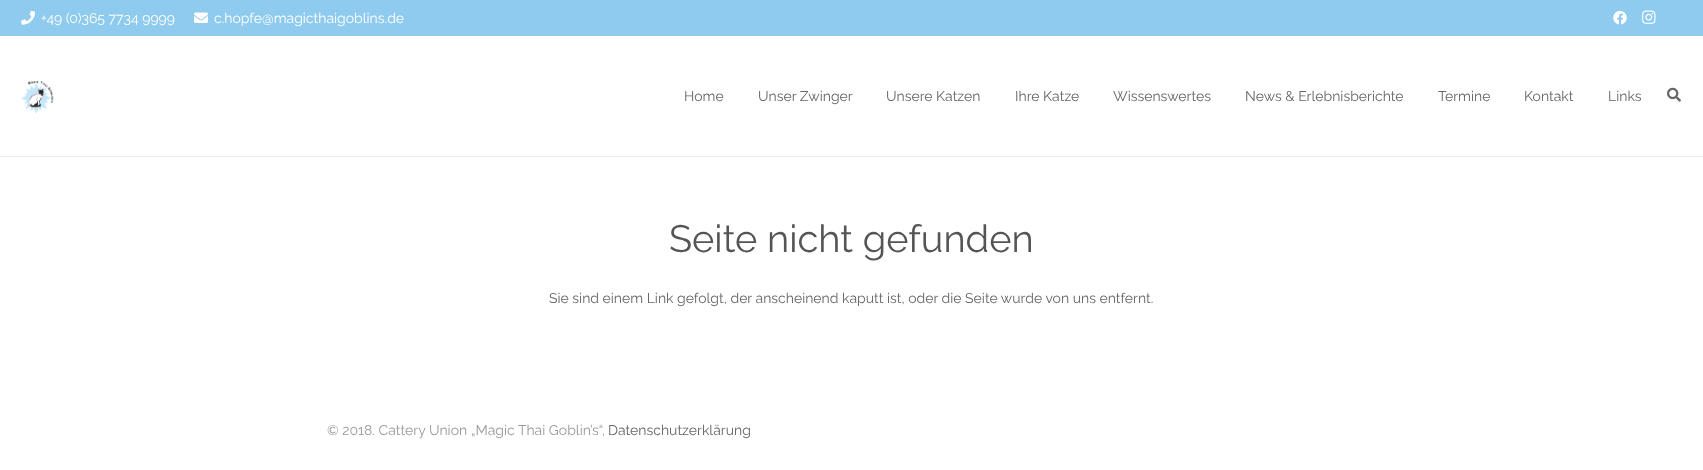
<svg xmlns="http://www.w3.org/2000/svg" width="1703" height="470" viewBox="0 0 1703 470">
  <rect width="100%" height="100%" fill="#ffffff"/>
  <rect x="0" y="0" width="1703" height="36" fill="#8fcbee"/>
  <image x="21" y="10" width="14" height="15" href="img1.png"/>
  <text x="41" y="23" font-family="Raleway" font-size="14" fill="#ffffff">+49 (0)365 7734 9999</text>
  <image x="194" y="12" width="14" height="11" href="img2.png"/>
  <text x="214" y="23" font-family="Raleway" font-size="14" fill="#ffffff">c.hopfe@magicthaigoblins.de</text>
  <image x="1613" y="11" width="14" height="14" href="img3.png"/>
  <image x="1642" y="10" width="14" height="14" href="img4.png"/>
  <rect x="0" y="156" width="1703" height="1" fill="#ebebeb"/>
  <image x="21" y="80" width="33" height="34" href="img5.png"/>
  <text x="684" y="101" font-family="Raleway" font-size="14" fill="#666666">Home</text>
  <text x="758" y="101" font-family="Raleway" font-size="14" fill="#666666">Unser Zwinger</text>
  <text x="886" y="101" font-family="Raleway" font-size="14" fill="#666666">Unsere Katzen</text>
  <text x="1015" y="101" font-family="Raleway" font-size="14" fill="#666666">Ihre Katze</text>
  <text x="1113" y="101" font-family="Raleway" font-size="14" fill="#666666">Wissenswertes</text>
  <text x="1245" y="101" font-family="Raleway" font-size="14" fill="#666666">News &amp; Erlebnisberichte</text>
  <text x="1438" y="101" font-family="Raleway" font-size="14" fill="#666666">Termine</text>
  <text x="1524" y="101" font-family="Raleway" font-size="14" fill="#666666">Kontakt</text>
  <text x="1608" y="101" font-family="Raleway" font-size="14" fill="#666666">Links</text>
  <image x="1667" y="87" width="14" height="15" href="img6.png"/>
  <text x="669" y="252" font-family="Raleway" font-size="38" fill="#555555">Seite nicht gefunden</text>
  <text x="549" y="303" font-family="Raleway" font-size="14" fill="#666666">Sie sind einem Link gefolgt, der anscheinend kaputt ist, oder die Seite wurde von uns entfernt.</text>
  <text x="327" y="435" font-family="Raleway" font-size="14" fill="#999999">© 2018. Cattery Union „Magic Thai Goblin’s“,</text>
  <text x="608" y="435" font-family="Raleway" font-size="14" fill="#666666">Datenschutzerklärung</text>
</svg>
